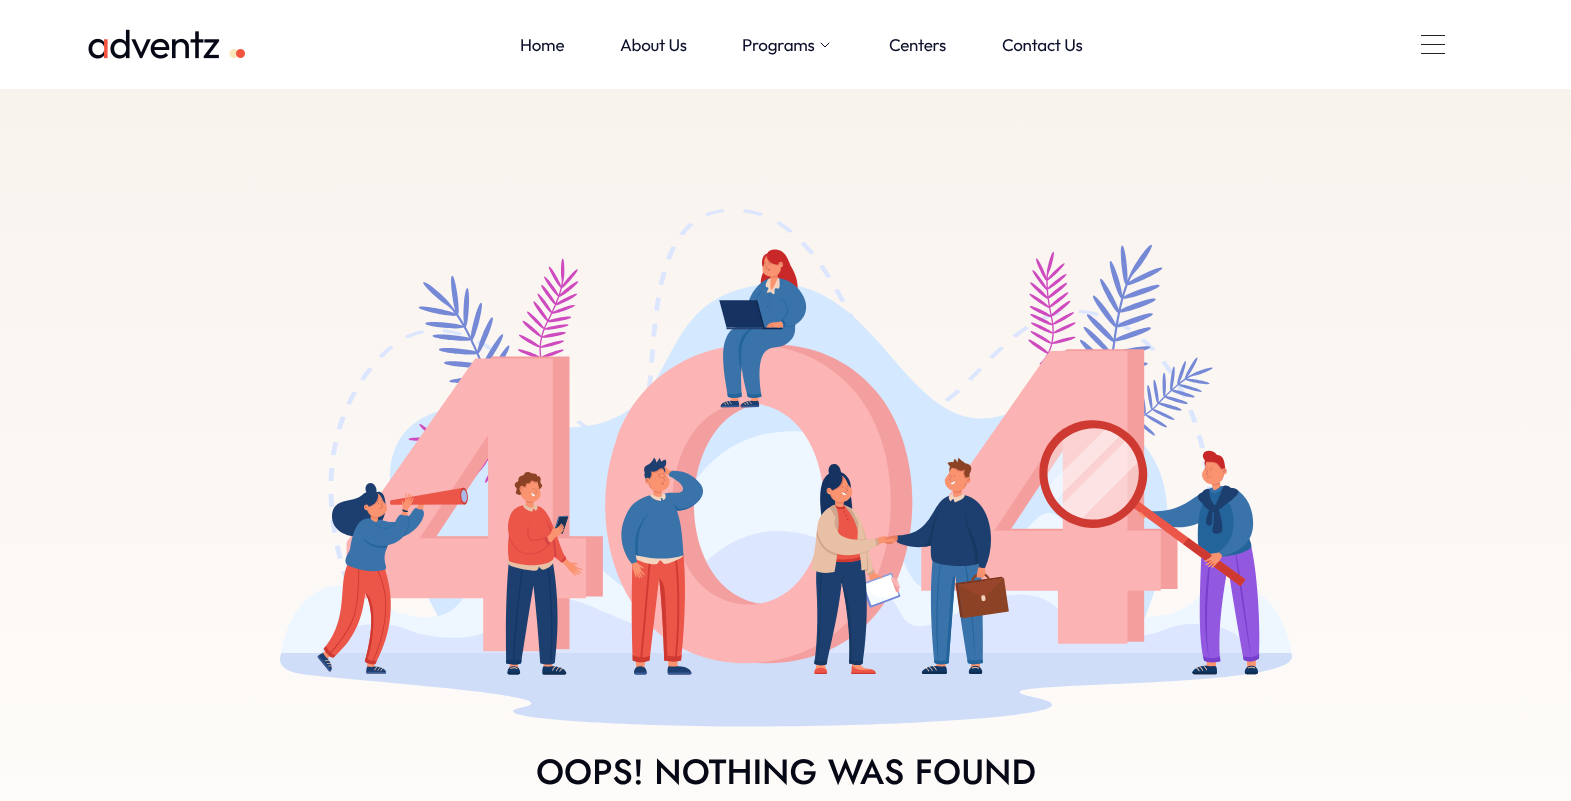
<svg xmlns="http://www.w3.org/2000/svg" width="1571" height="801" viewBox="0 0 1571 801">
  <defs>
    <linearGradient id="g1" gradientUnits="userSpaceOnUse" x1="785" y1="89" x2="786" y2="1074"><stop offset="0" stop-color="#f9f3ee"/><stop offset="1" stop-color="#fffefd"/></linearGradient>
  </defs>
  <rect width="100%" height="100%" fill="#ffffff"/>
  <image x="88" y="29" width="157" height="30" href="img1.png"/>
  <text x="520" y="51" font-family="Outfit" font-size="17" font-weight="100" letter-spacing="-0.25" fill="#0d102b">Home</text>
  <text x="620" y="51" font-family="Outfit" font-size="17" font-weight="100" letter-spacing="-0.25" fill="#0d102b">About Us</text>
  <text x="742" y="51" font-family="Outfit" font-size="17" font-weight="100" letter-spacing="-0.25" fill="#0d102b">Programs</text>
  <path d="M821 43L825 47L829 43" fill="none" stroke="#0d102b" stroke-linecap="round" stroke-linejoin="round"/>
  <text x="889" y="51" font-family="Outfit" font-size="17" font-weight="100" letter-spacing="-0.25" fill="#0d102b">Centers</text>
  <text x="1002" y="51" font-family="Outfit" font-size="17" font-weight="100" letter-spacing="-0.25" fill="#0d102b">Contact Us</text>
  <rect x="1421" y="35" width="24" height="1" fill="#222222"/>
  <rect x="1421" y="44" width="24" height="1" fill="#222222"/>
  <rect x="1421" y="53" width="24" height="1" fill="#222222"/>
  <rect x="0" y="89" width="1571" height="712" fill="url(#g1)"/>
  <image x="280" y="209" width="1012" height="518" href="img2.png"/>
  <text x="536" y="784" font-family="Jost" font-size="35" font-weight="500" fill="#060815">OOPS! NOTHING WAS FOUND</text>
</svg>
